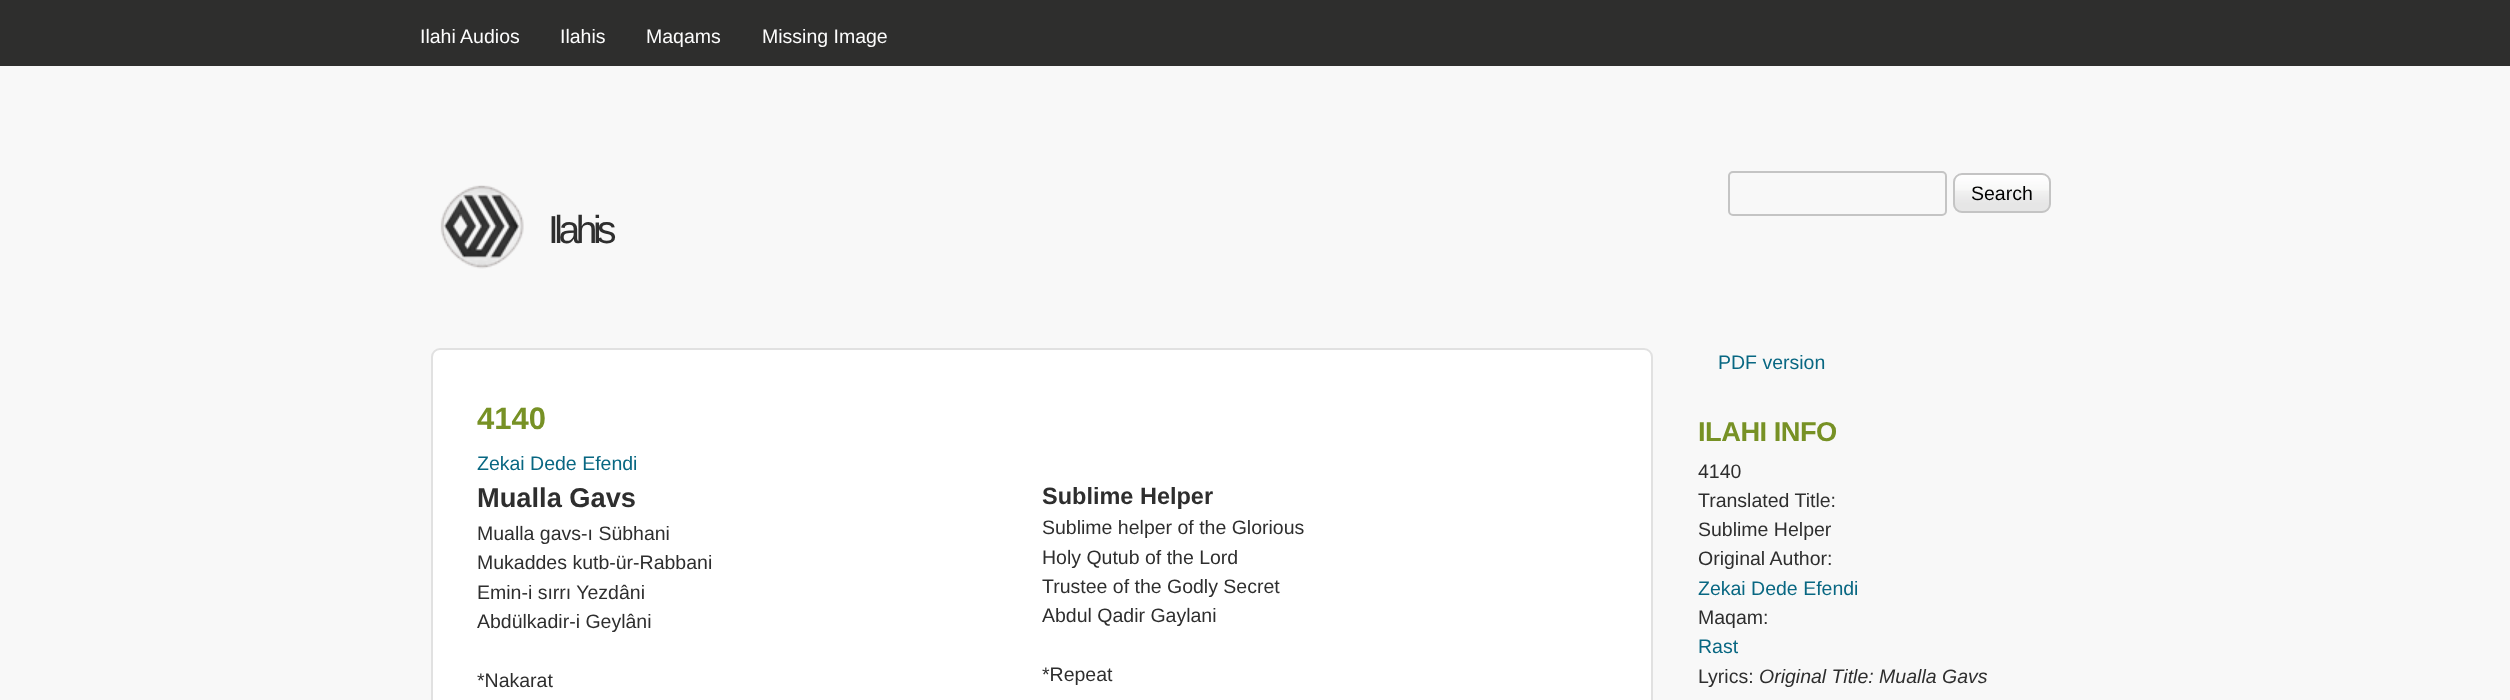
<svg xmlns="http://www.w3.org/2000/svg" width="2510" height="700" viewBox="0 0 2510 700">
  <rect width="100%" height="100%" fill="#f8f8f8"/>
  <rect x="0" y="0" width="2510" height="66" fill="#2e2e2d"/>
  <text x="420" y="43" font-family="Liberation Sans" font-size="19.5" fill="#fcfcfc">Ilahi Audios</text>
  <text x="560" y="43" font-family="Liberation Sans" font-size="19.5" fill="#fcfcfc">Ilahis</text>
  <text x="646" y="43" font-family="Liberation Sans" font-size="19.5" fill="#fcfcfc">Maqams</text>
  <text x="762" y="43" font-family="Liberation Sans" font-size="19.5" fill="#fcfcfc">Missing Image</text>
  <rect x="1729" y="172" width="217" height="43" rx="4" fill="none" stroke="#c4c4c4" stroke-width="2"/>
  <image x="1953" y="174" width="98" height="39" href="img1.png"/>
  <rect x="1954" y="174" width="96" height="38" rx="8" fill="none" stroke="#c4c4c4" stroke-width="2"/>
  <text x="1971" y="200" font-family="Liberation Sans" font-size="19.5" fill="#000000">Search</text>
  <image x="440" y="185" width="84" height="84" href="img2.png"/>
  <text x="548" y="243" font-family="Liberation Sans" font-size="39" letter-spacing="-4.5" fill="#2e2e2e">Ilahis</text>
  <rect x="432" y="349" width="1220" height="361" rx="8" fill="#ffffff" stroke="#e1e1e1" stroke-width="2"/>
  <text x="477" y="429" font-family="Liberation Sans" font-size="31" font-weight="bold" fill="#779125">4140</text>
  <text x="477" y="470" font-family="Liberation Sans" font-size="19.5" fill="#086782">Zekai Dede Efendi</text>
  <text x="477" y="507" font-family="Liberation Sans" font-size="27.25" font-weight="bold" fill="#2e2e2e">Mualla Gavs</text>
  <text x="477" y="540" font-family="Liberation Sans" font-size="19.5" fill="#2e2e2e">Mualla gavs-ı Sübhani</text>
  <text x="477" y="569" font-family="Liberation Sans" font-size="19.5" fill="#2e2e2e">Mukaddes kutb-ür-Rabbani</text>
  <text x="477" y="599" font-family="Liberation Sans" font-size="19.5" fill="#2e2e2e">Emin-i sırrı Yezdâni</text>
  <text x="477" y="628" font-family="Liberation Sans" font-size="19.5" fill="#2e2e2e">Abdülkadir-i Geylâni</text>
  <text x="477" y="687" font-family="Liberation Sans" font-size="19.5" fill="#2e2e2e">*Nakarat</text>
  <text x="1042" y="504" font-family="Liberation Sans" font-size="23.5" font-weight="bold" fill="#2e2e2e">Sublime Helper</text>
  <text x="1042" y="534" font-family="Liberation Sans" font-size="19.5" fill="#2e2e2e">Sublime helper of the Glorious</text>
  <text x="1042" y="564" font-family="Liberation Sans" font-size="19.5" fill="#2e2e2e">Holy Qutub of the Lord</text>
  <text x="1042" y="593" font-family="Liberation Sans" font-size="19.5" fill="#2e2e2e">Trustee of the Godly Secret</text>
  <text x="1042" y="622" font-family="Liberation Sans" font-size="19.5" fill="#2e2e2e">Abdul Qadir Gaylani</text>
  <text x="1042" y="681" font-family="Liberation Sans" font-size="19.5" fill="#2e2e2e">*Repeat</text>
  <text x="1718" y="369" font-family="Liberation Sans" font-size="19.5" fill="#086782">PDF version</text>
  <text x="1698" y="441" font-family="Liberation Sans" font-size="27.25" font-weight="bold" letter-spacing="-0.5" fill="#779125">ILAHI INFO</text>
  <text x="1698" y="478" font-family="Liberation Sans" font-size="19.5" fill="#2e2e2e">4140</text>
  <text x="1698" y="507" font-family="Liberation Sans" font-size="19.5" fill="#2e2e2e">Translated Title:</text>
  <text x="1698" y="536" font-family="Liberation Sans" font-size="19.5" fill="#2e2e2e">Sublime Helper</text>
  <text x="1698" y="565" font-family="Liberation Sans" font-size="19.5" fill="#2e2e2e">Original Author:</text>
  <text x="1698" y="595" font-family="Liberation Sans" font-size="19.5" fill="#086782">Zekai Dede Efendi</text>
  <text x="1698" y="624" font-family="Liberation Sans" font-size="19.5" fill="#2e2e2e">Maqam:</text>
  <text x="1698" y="653" font-family="Liberation Sans" font-size="19.5" fill="#086782">Rast</text>
  <text x="1698" y="683" font-family="Liberation Sans" font-size="19.5" fill="#2e2e2e">Lyrics:</text>
  <text x="1759" y="683" font-family="Liberation Sans" font-size="19.5" font-style="italic" fill="#2e2e2e">Original Title: Mualla Gavs</text>
</svg>
